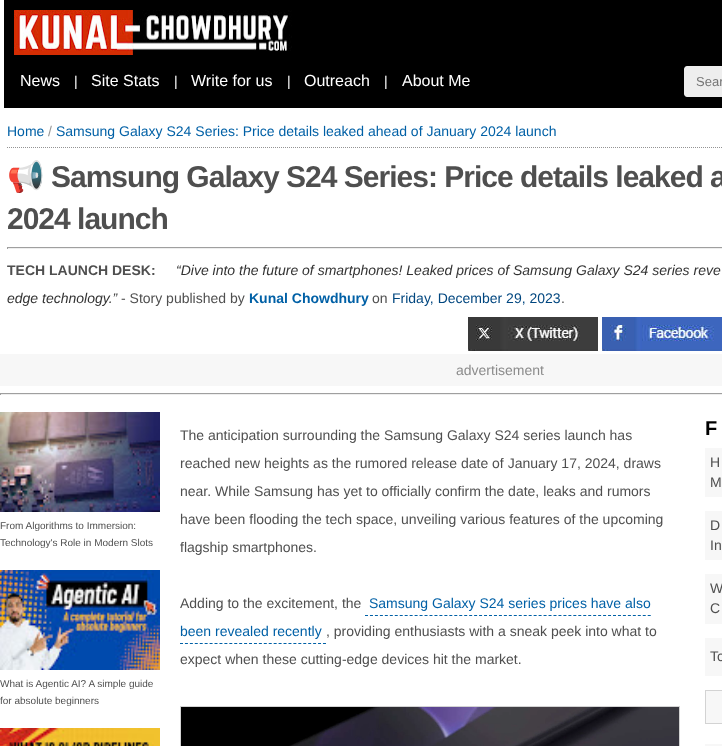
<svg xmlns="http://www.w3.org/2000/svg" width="722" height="746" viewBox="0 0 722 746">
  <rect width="100%" height="100%" fill="#ffffff"/>
  <rect x="4" y="0" width="718" height="108" fill="#000000"/>
  <image x="14" y="10" width="278" height="45" href="img1.png"/>
  <text x="20" y="86" font-family="Liberation Sans" font-size="16" fill="#ffffff">News</text>
  <text x="74" y="86" font-family="Liberation Sans" font-size="14" fill="#ffffff">|</text>
  <text x="91" y="86" font-family="Liberation Sans" font-size="16" fill="#ffffff">Site Stats</text>
  <text x="174" y="86" font-family="Liberation Sans" font-size="14" fill="#ffffff">|</text>
  <text x="191" y="86" font-family="Liberation Sans" font-size="16" fill="#ffffff">Write for us</text>
  <text x="287" y="86" font-family="Liberation Sans" font-size="14" fill="#ffffff">|</text>
  <text x="304" y="86" font-family="Liberation Sans" font-size="16" fill="#ffffff">Outreach</text>
  <text x="384" y="86" font-family="Liberation Sans" font-size="14" fill="#ffffff">|</text>
  <text x="402" y="86" font-family="Liberation Sans" font-size="16" fill="#ffffff">About Me</text>
  <path d="M687 66H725V97H687C685.5 97 684 95.5 684 94V69C684 67.5 685.5 66 687 66Z" fill="#eeeeee"/>
  <text x="696" y="86" font-family="Liberation Sans" font-size="13" fill="#757575">Sear</text>
  <path d="M7 147.5H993" fill="none" stroke="#939393" stroke-dasharray="1 1"/>
  <text x="7" y="136" font-family="Liberation Sans" font-size="14" fill="#0060a6">Home</text>
  <text x="48" y="136" font-family="Liberation Sans" font-size="14" fill="#969696">/</text>
  <text x="56" y="136" font-family="Liberation Sans" font-size="14" fill="#0060a6">Samsung Galaxy S24 Series: Price details leaked ahead of January 2024 launch</text>
  <text x="7" y="187" font-family="Noto Color Emoji" font-size="30" font-weight="bold" letter-spacing="-1" fill="#4f4f4f">📢</text>
  <text x="51" y="187" font-family="Liberation Sans" font-size="30" font-weight="bold" letter-spacing="-1" fill="#4f4f4f">Samsung Galaxy S24 Series: Price details leaked a</text>
  <text x="7" y="229" font-family="Liberation Sans" font-size="30" font-weight="bold" letter-spacing="-1" fill="#4f4f4f">2024 launch</text>
  <rect x="7" y="247" width="715" height="1" fill="#9f9f9f"/>
  <rect x="7" y="248" width="715" height="1" fill="#eeeeee"/>
  <rect x="7" y="247" width="1" height="2" fill="#9f9f9f"/>
  <text x="176" y="275" font-family="Liberation Sans" font-size="14" font-style="italic" fill="#333333">“Dive into the future of smartphones! Leaked prices of Samsung Galaxy S24 series reve</text>
  <text x="7" y="303" font-family="Liberation Sans" font-size="14" font-style="italic" fill="#333333">edge technology.”</text>
  <text x="121" y="303" font-family="Liberation Sans" font-size="14" fill="#4f4f4f">- Story published by</text>
  <text x="249" y="303" font-family="Liberation Sans" font-size="14" font-weight="bold" fill="#0060a6">Kunal Chowdhury</text>
  <text x="372" y="303" font-family="Liberation Sans" font-size="14" fill="#4f4f4f">on</text>
  <text x="392" y="303" font-family="Liberation Sans" font-size="14" fill="#00467f">Friday, December 29, 2023</text>
  <text x="561" y="303" font-family="Liberation Sans" font-size="14" fill="#4f4f4f">.</text>
  <text x="7" y="275" font-family="Liberation Sans" font-size="14" font-weight="bold" fill="#4f4f4f">TECH LAUNCH DESK:</text>
  <image x="468" y="317" width="130" height="34" href="img2.png"/>
  <image x="602" y="317" width="120" height="34" href="img3.png"/>
  <rect x="0" y="354" width="722" height="32" fill="#f7f7f7"/>
  <text x="456" y="375" font-family="Liberation Sans" font-size="14" fill="#8b8b8b">advertisement</text>
  <rect x="0" y="393" width="722" height="1" fill="#9f9f9f"/>
  <rect x="0" y="394" width="722" height="1" fill="#eeeeee"/>
  <rect x="0" y="393" width="1" height="2" fill="#9f9f9f"/>
  <image x="0" y="412" width="160" height="100" href="img4.png"/>
  <text x="0" y="529" font-family="Liberation Sans" font-size="10" fill="#4f4f4f">From Algorithms to Immersion:</text>
  <text x="0" y="546" font-family="Liberation Sans" font-size="10" fill="#4f4f4f">Technology's Role in Modern Slots</text>
  <image x="0" y="570" width="160" height="100" href="img5.png"/>
  <text x="0" y="687" font-family="Liberation Sans" font-size="10" fill="#4f4f4f">What is Agentic AI? A simple guide</text>
  <text x="0" y="704" font-family="Liberation Sans" font-size="10" fill="#4f4f4f">for absolute beginners</text>
  <image x="0" y="728" width="160" height="18" href="img6.png"/>
  <text x="180" y="440" font-family="Liberation Sans" font-size="14" fill="#4f4f4f">The anticipation surrounding the Samsung Galaxy S24 series launch has</text>
  <text x="180" y="468" font-family="Liberation Sans" font-size="14" fill="#4f4f4f">reached new heights as the rumored release date of January 17, 2024, draws</text>
  <text x="180" y="496" font-family="Liberation Sans" font-size="14" fill="#4f4f4f">near. While Samsung has yet to officially confirm the date, leaks and rumors</text>
  <text x="180" y="524" font-family="Liberation Sans" font-size="14" fill="#4f4f4f">have been flooding the tech space, unveiling various features of the upcoming</text>
  <text x="180" y="552" font-family="Liberation Sans" font-size="14" fill="#4f4f4f">flagship smartphones.</text>
  <text x="180" y="608" font-family="Liberation Sans" font-size="14" fill="#4f4f4f">Adding to the excitement, the</text>
  <text x="369" y="608" font-family="Liberation Sans" font-size="14" fill="#0060a6">Samsung Galaxy S24 series prices have also</text>
  <path d="M365 615.5H651" fill="none" stroke="#0060a6" stroke-dasharray="3 1.96"/>
  <text x="180" y="636" font-family="Liberation Sans" font-size="14" fill="#0060a6">been revealed recently</text>
  <path d="M180 643.5H326" fill="none" stroke="#0060a6" stroke-dasharray="3 1.93"/>
  <text x="326" y="636" font-family="Liberation Sans" font-size="14" fill="#4f4f4f">, providing enthusiasts with a sneak peek into what to</text>
  <text x="180" y="664" font-family="Liberation Sans" font-size="14" fill="#4f4f4f">expect when these cutting-edge devices hit the market.</text>
  <rect x="180.5" y="706.5" width="499" height="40" fill="none" stroke="#d3d3d3"/>
  <image x="181" y="707" width="498" height="39" href="img7.png"/>
  <text x="705" y="435" font-family="Liberation Sans" font-size="20" font-weight="bold" fill="#000000">F</text>
  <rect x="705" y="448" width="17" height="49" fill="#f7f7f7"/>
  <text x="710" y="467" font-family="Liberation Sans" font-size="14" fill="#4f4f4f">H</text>
  <text x="710" y="487" font-family="Liberation Sans" font-size="14" fill="#4f4f4f">M</text>
  <rect x="705" y="511" width="17" height="49" fill="#f7f7f7"/>
  <text x="710" y="530" font-family="Liberation Sans" font-size="14" fill="#4f4f4f">D</text>
  <text x="710" y="550" font-family="Liberation Sans" font-size="14" fill="#4f4f4f">In</text>
  <rect x="705" y="574" width="17" height="50" fill="#f7f7f7"/>
  <text x="710" y="593" font-family="Liberation Sans" font-size="14" fill="#4f4f4f">W</text>
  <text x="710" y="613" font-family="Liberation Sans" font-size="14" fill="#4f4f4f">C</text>
  <rect x="705" y="638" width="17" height="38" fill="#f7f7f7"/>
  <text x="710" y="661" font-family="Liberation Sans" font-size="14" fill="#4f4f4f">To</text>
  <rect x="705.5" y="690.5" width="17" height="33" fill="#f7f7f7" stroke="#d3d3d3"/>
  <rect x="705" y="744" width="17" height="2" fill="#f7f7f7"/>
</svg>
